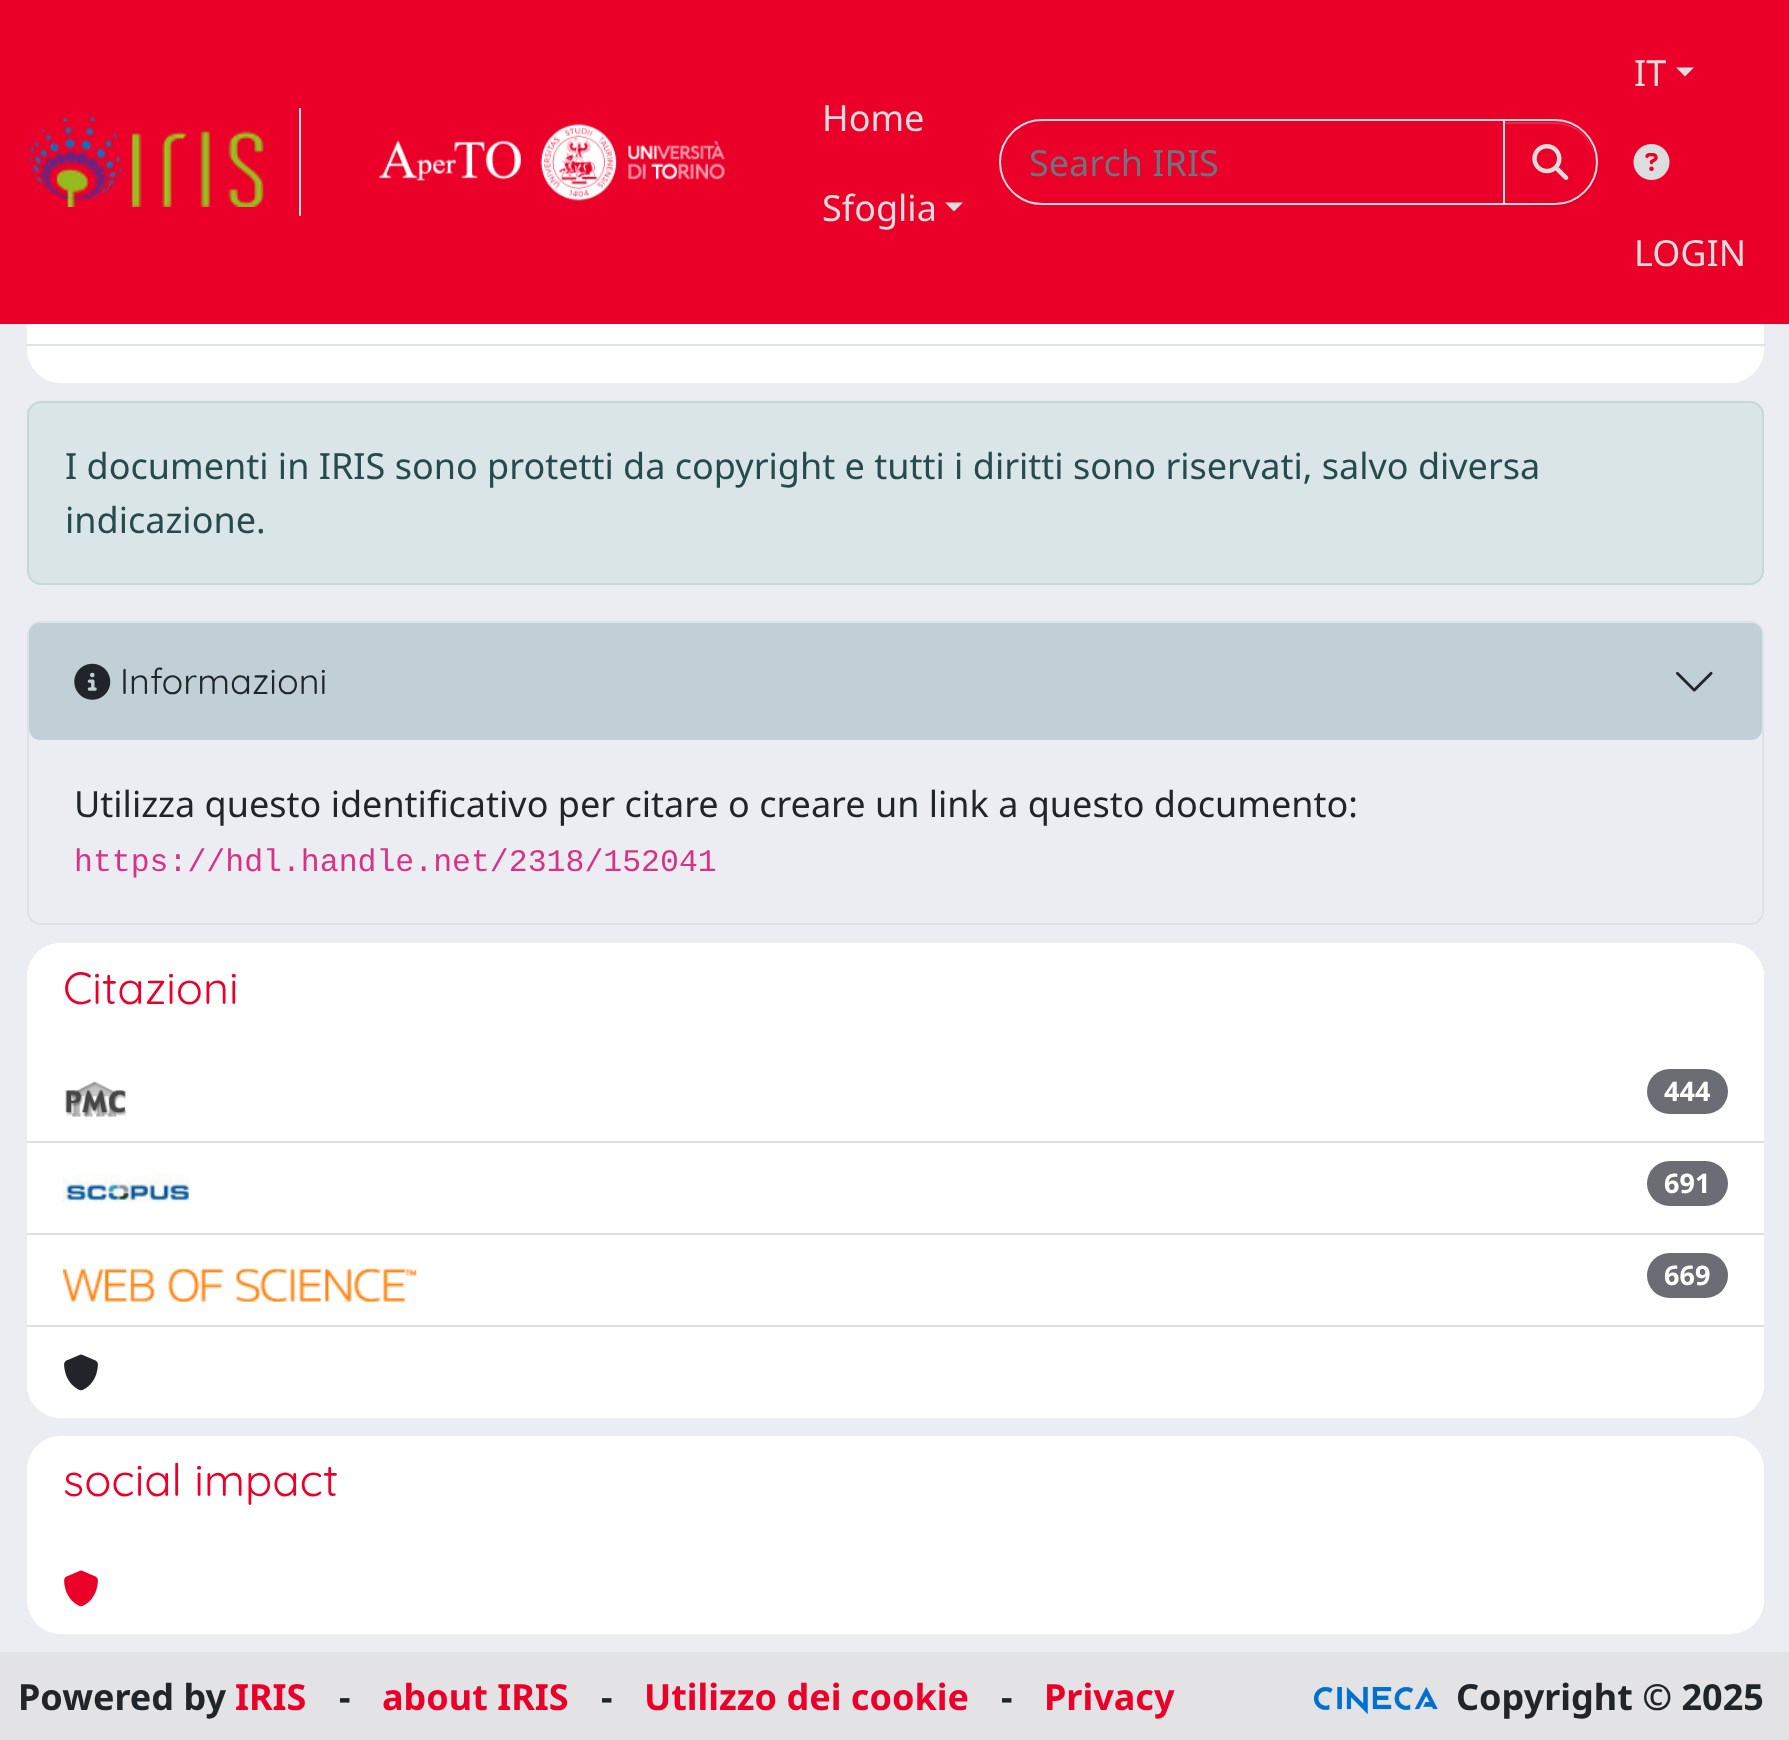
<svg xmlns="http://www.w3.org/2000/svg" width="1789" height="1740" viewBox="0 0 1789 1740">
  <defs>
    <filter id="blur1" x="-50%" y="-200%" width="200%" height="500%"><feGaussianBlur stdDeviation="1"/></filter>
  </defs>
  <rect width="100%" height="100%" fill="#ecedf2"/>
  <rect x="27" y="-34" width="1737" height="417" rx="34" fill="#ffffff"/>
  <rect x="0" y="0" width="1789" height="324" fill="#ea0029"/>
  <rect x="299" y="108" width="2" height="108" fill="#dddddd"/>
  <image x="27" y="117" width="237" height="90" href="img1.png"/>
  <image x="379" y="123" width="346" height="78" href="img2.png"/>
  <text x="822" y="131" font-family="Noto Sans" font-size="36" fill="#dddddd">Home</text>
  <text x="822" y="221" font-family="Noto Sans" font-size="36" fill="#dddddd">Sfoglia</text>
  <path d="M945 202.5H963L954 211.5Z" fill="#dddddd"/>
  <path d="M1042 120H1504V204H1042C1019 204 1000 185 1000 162C1000 139 1019 120 1042 120Z" fill="none" stroke="#dddddd" stroke-width="2"/>
  <text x="1029" y="176" font-family="Noto Sans" font-size="36" fill="#6c757d">Search IRIS</text>
  <rect x="1503" y="122" width="95" height="85" rx="42.5" fill="#000000" fill-opacity="0.07" filter="url(#blur1)"/>
  <path d="M1503 119H1555C1578.5 119 1598 138.5 1598 162C1598 185.5 1578.5 205 1555 205H1503Z" fill="#ea0029"/>
  <path d="M1505 124H1555C1577 124 1595 142 1595 163V162C1595 140 1577 122 1554 122H1505Z" fill="#ed2649"/>
  <path d="M1504 120H1555C1578 120 1597 139 1597 162C1597 185 1578 204 1555 204H1504Z" fill="none" stroke="#dddddd" stroke-width="2"/>
  <image x="1532" y="144" width="37" height="36" href="img3.png"/>
  <text x="1634" y="86" font-family="Noto Sans" font-size="36" fill="#dddddd">IT</text>
  <path d="M1676 67.5H1694L1685 76.5Z" fill="#dddddd"/>
  <image x="1633" y="144" width="37" height="36" href="img4.png"/>
  <text x="1634" y="266" font-family="Noto Sans" font-size="36" fill="#dddddd">LOGIN</text>
  <rect x="27" y="344" width="1739" height="2" fill="#dee2e6"/>
  <rect x="28" y="402" width="1735" height="182" rx="13" fill="#d9e5e6" stroke="#c6d7da" stroke-width="2"/>
  <text x="65" y="479" font-family="Noto Sans" font-size="36" fill="#274a4f">I documenti in IRIS sono protetti da copyright e tutti i diritti sono riservati, salvo diversa</text>
  <text x="65" y="533" font-family="Noto Sans" font-size="36" fill="#274a4f">indicazione.</text>
  <rect x="28" y="622" width="1735" height="302" rx="13" fill="none" stroke="#dee2e6" stroke-width="2"/>
  <rect x="29" y="623" width="1733" height="117" rx="11" fill="#417b84" fill-opacity="0.25"/>
  <image x="74" y="663" width="37" height="37" href="img5.png"/>
  <text x="120" y="694" font-family="Quicksand" font-size="36" fill="#212529">Informazioni</text>
  <image x="1676" y="671" width="37" height="21" href="img6.png"/>
  <text x="74" y="817" font-family="Noto Sans" font-size="36" fill="#212529">Utilizza questo identificativo per citare o creare un link a questo documento:</text>
  <text x="74" y="871" font-family="Liberation Mono" font-size="31.5" fill="#d63384">https://hdl.handle.net/2318/152041</text>
  <rect x="27" y="943" width="1737" height="475" rx="34" fill="#ffffff"/>
  <path d="M61 943H1730C1749 943 1764 958 1764 977V1051H27V977C27 958 42 943 61 943Z" fill="#ffffff"/>
  <text x="63" y="1004" font-family="Quicksand" font-size="45" fill="#ea0029">Citazioni</text>
  <rect x="27" y="1141" width="1737" height="2" fill="#dfdfdf"/>
  <image x="65" y="1081" width="61" height="36" href="img7.png"/>
  <rect x="1647" y="1069" width="81" height="45" rx="22.5" fill="#6b6c74"/>
  <text x="1664" y="1101" font-family="Noto Sans" font-size="27" font-weight="bold" fill="#ffffff">444</text>
  <rect x="27" y="1233" width="1737" height="2" fill="#dfdfdf"/>
  <image x="63" y="1173" width="126" height="30" href="img8.png"/>
  <rect x="1647" y="1161" width="81" height="45" rx="22.5" fill="#6b6c74"/>
  <text x="1664" y="1193" font-family="Noto Sans" font-size="27" font-weight="bold" fill="#ffffff">691</text>
  <rect x="27" y="1325" width="1737" height="2" fill="#dfdfdf"/>
  <image x="63" y="1268" width="354" height="34" href="img9.png"/>
  <rect x="1647" y="1253" width="81" height="45" rx="22.5" fill="#6b6c74"/>
  <text x="1664" y="1285" font-family="Noto Sans" font-size="27" font-weight="bold" fill="#ffffff">669</text>
  <path d="M27 1328H1764V1384C1764 1403 1749 1418 1730 1418H61C42 1418 27 1403 27 1384Z" fill="#ffffff"/>
  <image x="64" y="1354" width="34" height="37" href="img10.png"/>
  <path d="M61 1436H1730C1749 1436 1764 1451 1764 1470V1544H27V1470C27 1451 42 1436 61 1436Z" fill="#ffffff"/>
  <text x="63" y="1496" font-family="Quicksand" font-size="45" fill="#ea0029">social impact</text>
  <path d="M27 1544H1764V1600C1764 1619 1749 1634 1730 1634H61C42 1634 27 1619 27 1600Z" fill="#ffffff"/>
  <image x="64" y="1570" width="34" height="37" href="img11.png"/>
  <rect x="0" y="1652" width="1789" height="88" fill="#e3e3e5"/>
  <text x="18" y="1710" font-family="Noto Sans" font-size="36" font-weight="bold" fill="#212529">Powered by</text>
  <text x="235" y="1710" font-family="Noto Sans" font-size="36" font-weight="bold" fill="#ea0029">IRIS</text>
  <text x="339" y="1710" font-family="Noto Sans" font-size="36" font-weight="bold" fill="#212529">-</text>
  <text x="382" y="1710" font-family="Noto Sans" font-size="36" font-weight="bold" fill="#ea0029">about IRIS</text>
  <text x="601" y="1710" font-family="Noto Sans" font-size="36" font-weight="bold" fill="#212529">-</text>
  <text x="644" y="1710" font-family="Noto Sans" font-size="36" font-weight="bold" fill="#ea0029">Utilizzo dei cookie</text>
  <text x="1001" y="1710" font-family="Noto Sans" font-size="36" font-weight="bold" fill="#212529">-</text>
  <text x="1044" y="1710" font-family="Noto Sans" font-size="36" font-weight="bold" fill="#ea0029">Privacy</text>
  <image x="1314" y="1686" width="124" height="28" href="img12.png"/>
  <text x="1456" y="1710" font-family="Noto Sans" font-size="36" font-weight="bold" fill="#212529">Copyright © 2025</text>
</svg>
